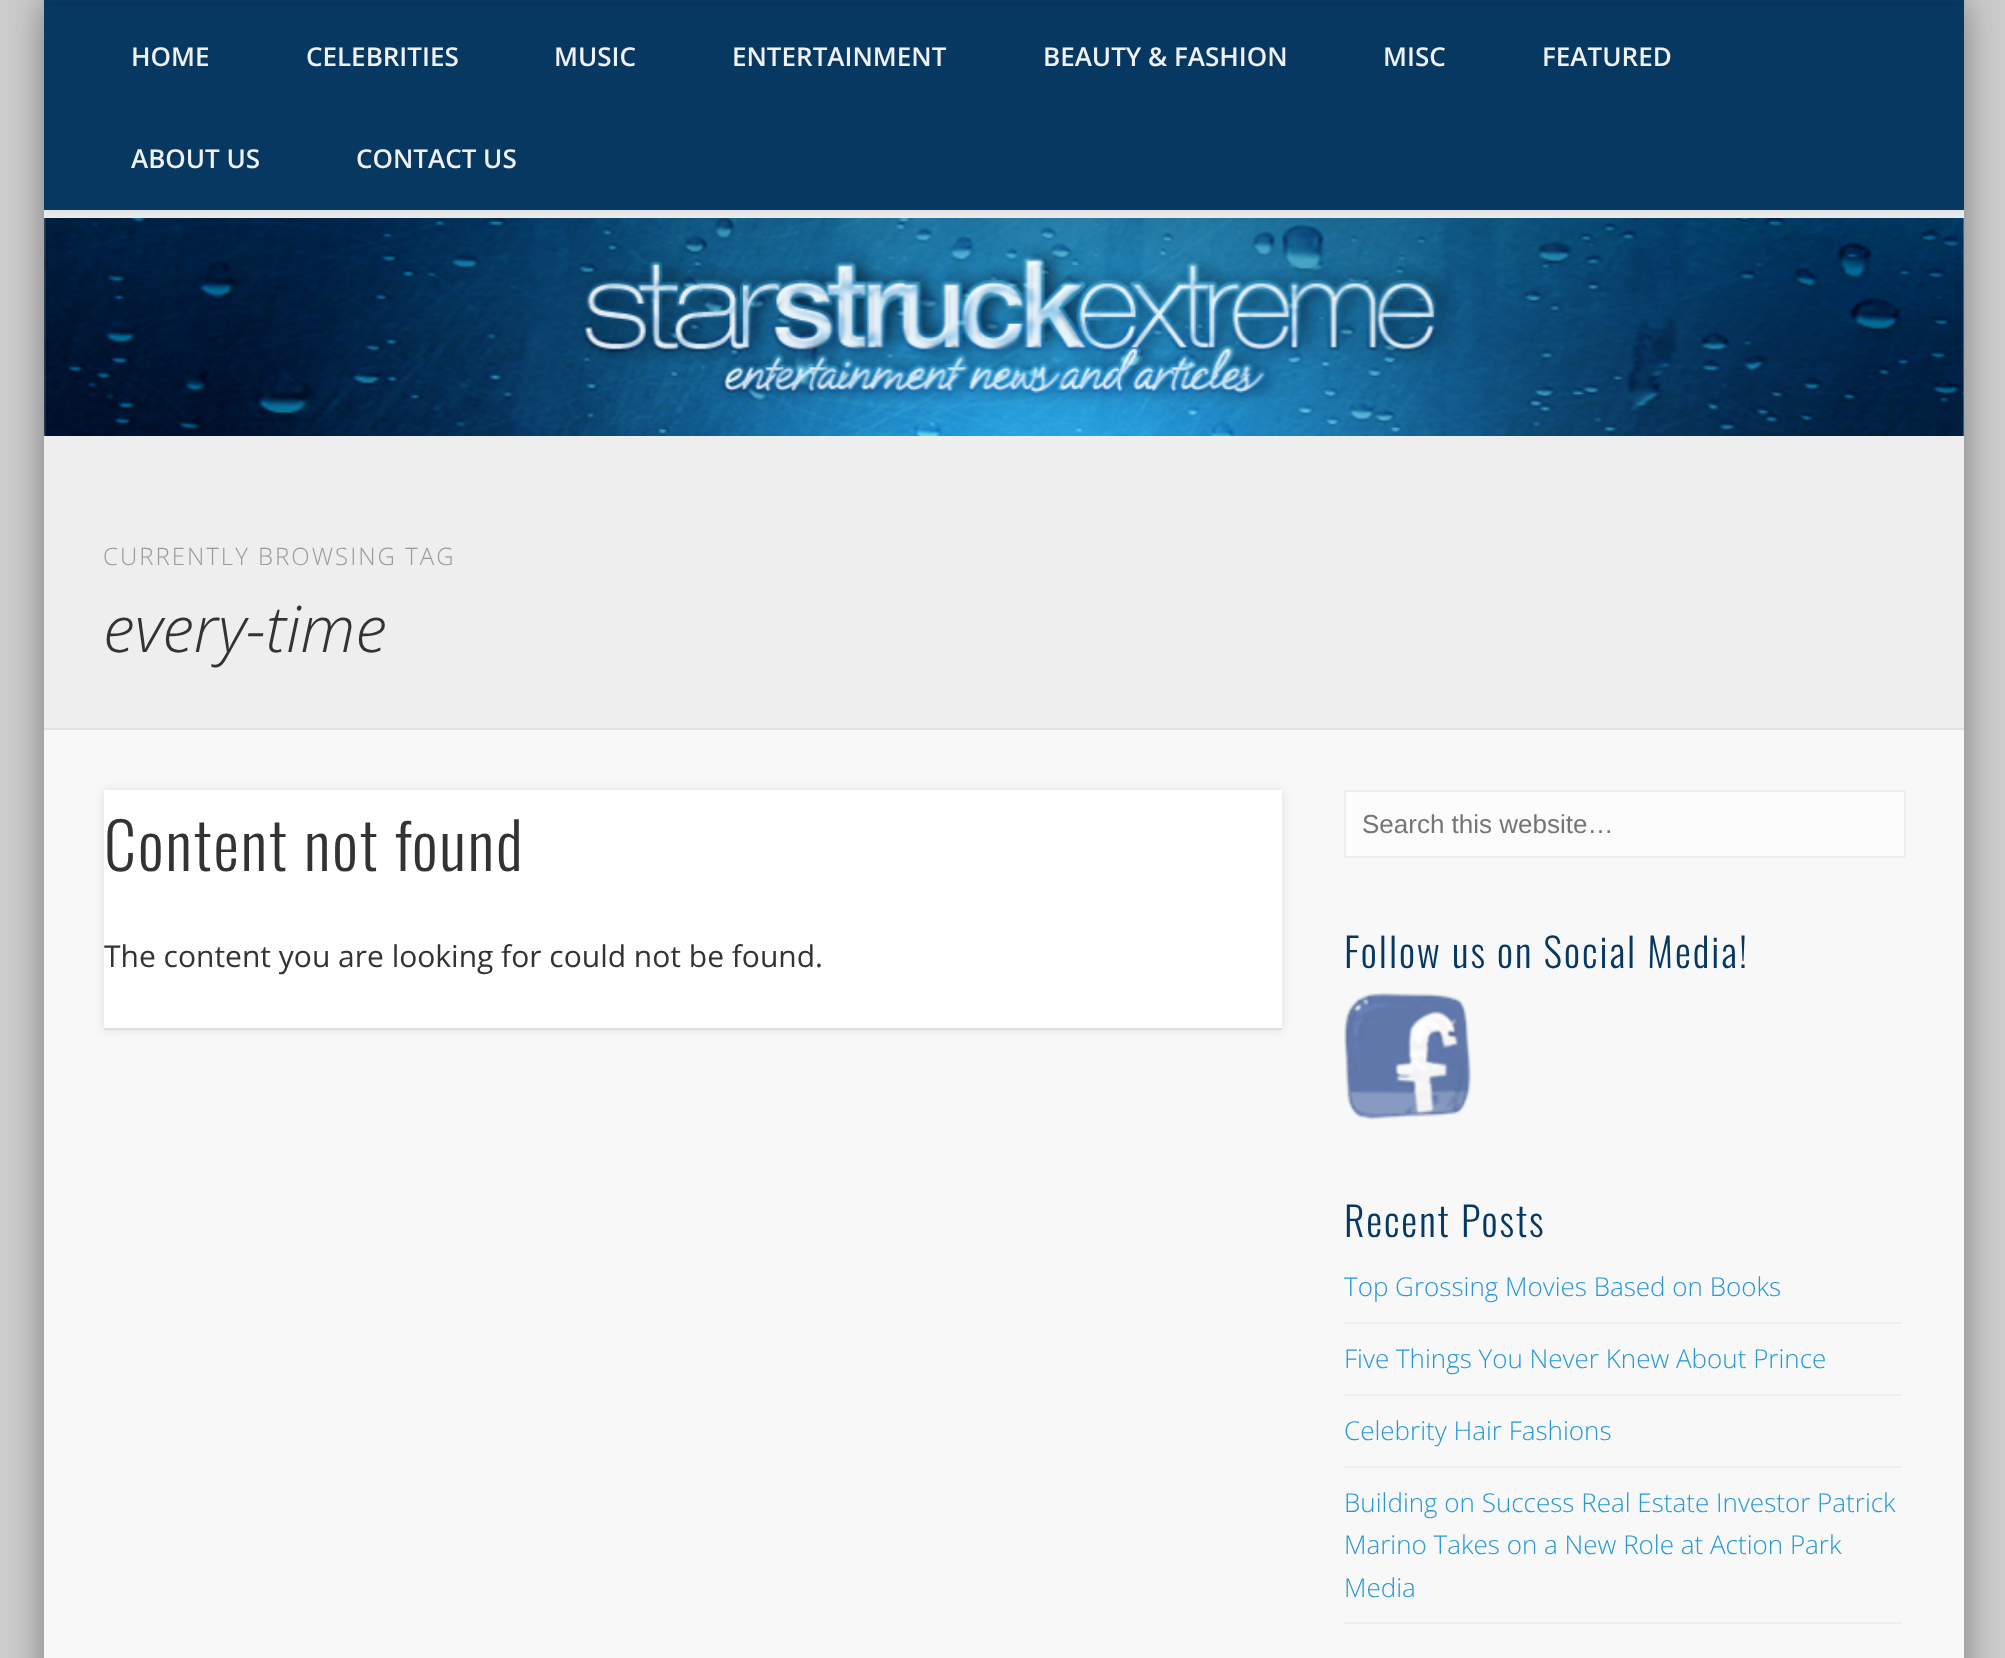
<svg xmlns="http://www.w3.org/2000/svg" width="2005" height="1658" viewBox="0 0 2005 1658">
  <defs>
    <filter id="blur1" x="-50%" y="-200%" width="200%" height="500%"><feGaussianBlur stdDeviation="18"/></filter>
    <clipPath id="clip1"><rect x="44" y="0" width="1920" height="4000"/></clipPath>
    <filter id="blur2" x="-50%" y="-200%" width="200%" height="500%"><feGaussianBlur stdDeviation="7"/></filter>
    <filter id="blur3" x="-50%" y="-200%" width="200%" height="500%"><feGaussianBlur stdDeviation="5"/></filter>
  </defs>
  <rect width="100%" height="100%" fill="#cccccc"/>
  <rect x="44" y="0" width="1920" height="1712" fill="#000000" fill-opacity="0.4" filter="url(#blur1)"/>
  <rect x="44" y="730" width="1920" height="928" fill="#f8f8f8"/>
  <rect x="44" y="0" width="1920" height="6" fill="#063861"/>
  <rect x="44" y="210" width="1920" height="518" fill="#eeeeee"/>
  <image x="44" y="218" width="1920" height="218" href="img1.png"/>
  <g clip-path="url(#clip1)">
    <rect x="44" y="6" width="1920" height="204" fill="#000000" fill-opacity="0.1" filter="url(#blur2)"/>
  </g>
  <rect x="44" y="6" width="1920" height="204" fill="#063861"/>
  <text x="131" y="66" font-family="Open Sans" font-size="26" font-weight="600" fill="#f0f0f0">HOME</text>
  <text x="306" y="66" font-family="Open Sans" font-size="26" font-weight="600" fill="#f0f0f0">CELEBRITIES</text>
  <text x="554" y="66" font-family="Open Sans" font-size="26" font-weight="600" fill="#f0f0f0">MUSIC</text>
  <text x="732" y="66" font-family="Open Sans" font-size="26" font-weight="600" fill="#f0f0f0">ENTERTAINMENT</text>
  <text x="1043" y="66" font-family="Open Sans" font-size="26" font-weight="600" fill="#f0f0f0">BEAUTY &amp; FASHION</text>
  <text x="1383" y="66" font-family="Open Sans" font-size="26" font-weight="600" fill="#f0f0f0">MISC</text>
  <text x="1542" y="66" font-family="Open Sans" font-size="26" font-weight="600" fill="#f0f0f0">FEATURED</text>
  <text x="131" y="168" font-family="Open Sans" font-size="26" font-weight="600" fill="#f0f0f0">ABOUT US</text>
  <text x="356" y="168" font-family="Open Sans" font-size="26" font-weight="600" fill="#f0f0f0">CONTACT US</text>
  <rect x="44" y="728" width="1920" height="2" fill="#e1e1e1"/>
  <text x="103" y="565" font-family="Open Sans" font-size="24" font-weight="300" letter-spacing="2" fill="#999999">CURRENTLY BROWSING TAG</text>
  <text x="103" y="652" font-family="Open Sans" font-size="64" font-weight="300" font-style="italic" fill="#333333">every-time</text>
  <rect x="104" y="790" width="1178" height="240" fill="#000000" fill-opacity="0.1" filter="url(#blur3)"/>
  <rect x="104" y="790" width="1178" height="238" fill="#ffffff"/>
  <rect x="104" y="1028" width="1178" height="2" fill="#dedede"/>
  <text x="104" y="871" font-family="Oswald" font-size="64" font-weight="300" letter-spacing="2" fill="#333333">Content not found</text>
  <text x="104" y="967" font-family="Open Sans" font-size="30" fill="#333333">The content you are looking for could not be found.</text>
  <rect x="1345" y="791" width="560" height="66" fill="#fcfcfc" stroke="#eeeeee" stroke-width="2"/>
  <text x="1362" y="833" font-family="Liberation Sans" font-size="26" fill="#757575">Search this website…</text>
  <text x="1344" y="968" font-family="Oswald" font-size="40" font-weight="300" letter-spacing="2" fill="#063861">Follow us on Social Media!</text>
  <image x="1344" y="992" width="128" height="128" href="img2.png"/>
  <text x="1344" y="1237" font-family="Oswald" font-size="40" font-weight="300" letter-spacing="2" fill="#063861">Recent Posts</text>
  <rect x="1344" y="1322" width="558" height="2" fill="#eeeeee"/>
  <text x="1344" y="1296" font-family="Open Sans" font-size="26" font-weight="300" fill="#2598d5">Top Grossing Movies Based on Books</text>
  <rect x="1344" y="1394" width="558" height="2" fill="#eeeeee"/>
  <text x="1344" y="1368" font-family="Open Sans" font-size="26" font-weight="300" fill="#2598d5">Five Things You Never Knew About Prince</text>
  <rect x="1344" y="1466" width="558" height="2" fill="#eeeeee"/>
  <text x="1344" y="1440" font-family="Open Sans" font-size="26" font-weight="300" fill="#2598d5">Celebrity Hair Fashions</text>
  <rect x="1344" y="1622" width="558" height="2" fill="#eeeeee"/>
  <text x="1344" y="1512" font-family="Open Sans" font-size="26" font-weight="300" fill="#2598d5">Building on Success Real Estate Investor Patrick</text>
  <text x="1344" y="1554" font-family="Open Sans" font-size="26" font-weight="300" fill="#2598d5">Marino Takes on a New Role at Action Park</text>
  <text x="1344" y="1597" font-family="Open Sans" font-size="26" font-weight="300" fill="#2598d5">Media</text>
</svg>
